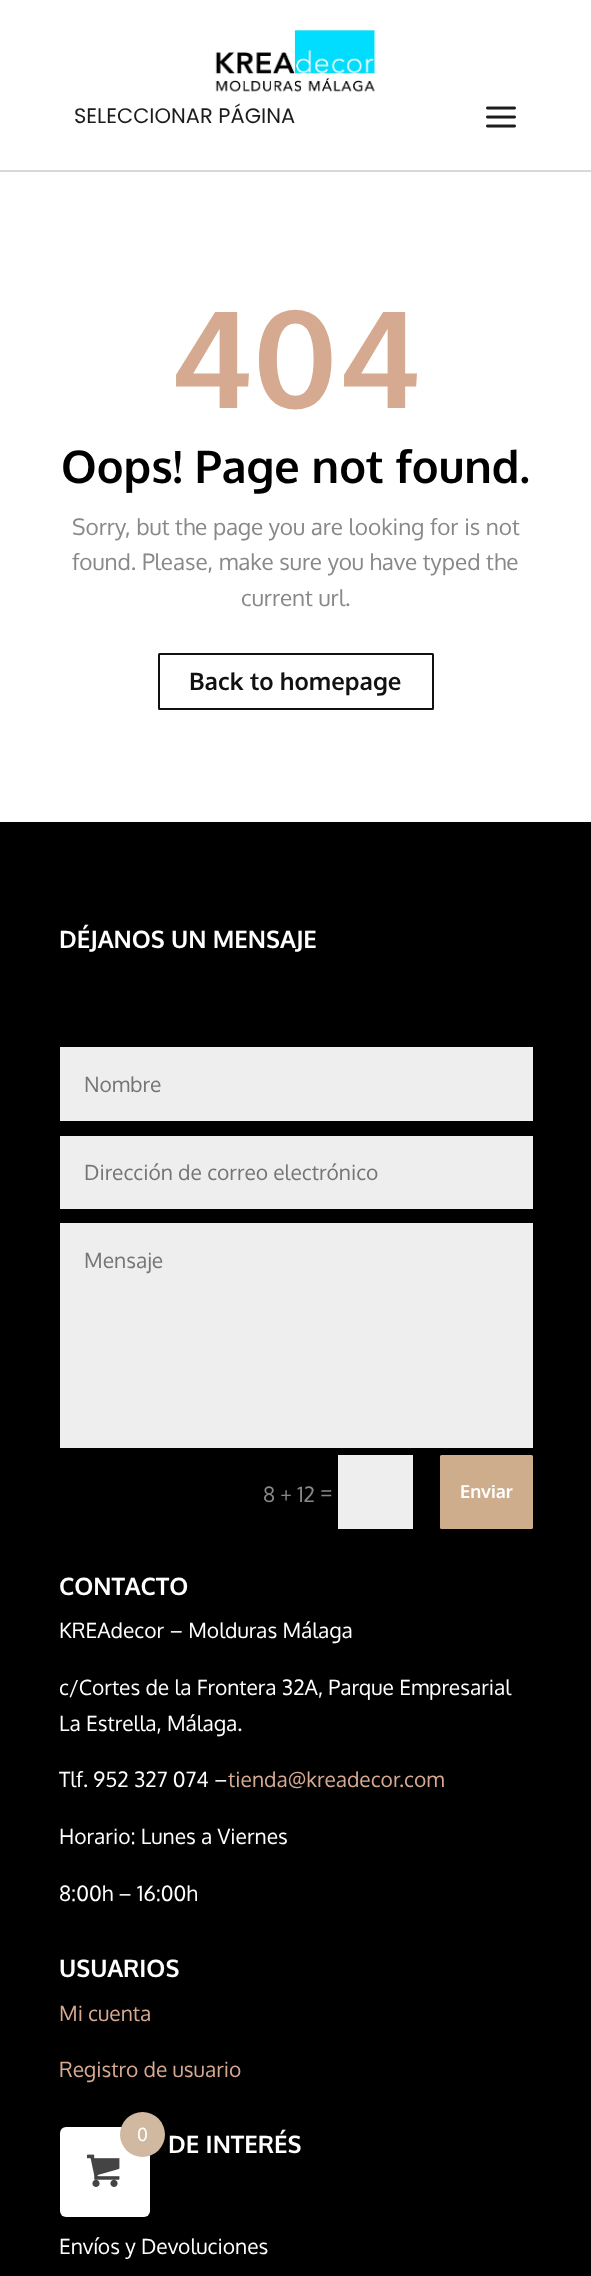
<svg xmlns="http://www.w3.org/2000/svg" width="591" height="2276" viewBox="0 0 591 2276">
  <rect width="100%" height="100%" fill="#ffffff"/>
  <rect x="0" y="170" width="591" height="2" fill="#d9d9d9"/>
  <image x="215" y="30" width="161" height="62" href="img1.png"/>
  <text x="74" y="123" font-family="Poppins" font-size="21" fill="#1c1c1c">SELECCIONAR PÁGINA</text>
  <image x="486" y="106" width="30" height="22" href="img2.png"/>
  <text x="170" y="408" font-family="Oxygen" font-size="135" font-weight="bold" fill="#d6aa91">404</text>
  <text x="61" y="483" font-family="Oxygen" font-size="45" font-weight="bold" fill="#000000">Oops! Page not found.</text>
  <text x="72" y="535" font-family="Oxygen" font-size="22.5" fill="#888888">Sorry, but the page you are looking for is not</text>
  <text x="72" y="570" font-family="Oxygen" font-size="22.5" fill="#888888">found. Please, make sure you have typed the</text>
  <text x="241" y="606" font-family="Oxygen" font-size="22.5" fill="#888888">current url.</text>
  <rect x="159" y="654" width="274" height="55" rx="0.5" fill="none" stroke="#111111" stroke-width="2"/>
  <text x="189" y="690" font-family="Oxygen" font-size="24" font-weight="bold" fill="#111111">Back to homepage</text>
  <rect x="0" y="822" width="591" height="1454" fill="#000000"/>
  <text x="59" y="948" font-family="Oxygen" font-size="24" font-weight="bold" fill="#ffffff">DÉJANOS UN MENSAJE</text>
  <rect x="60" y="1047" width="473" height="74" fill="#eeeeee"/>
  <text x="84" y="1092" font-family="Oxygen" font-size="21" fill="#757575">Nombre</text>
  <rect x="60" y="1136" width="473" height="73" fill="#eeeeee"/>
  <text x="84" y="1180" font-family="Oxygen" font-size="21" fill="#757575">Dirección de correo electrónico</text>
  <rect x="60" y="1223" width="473" height="225" fill="#eeeeee"/>
  <text x="84" y="1268" font-family="Oxygen" font-size="21" fill="#757575">Mensaje</text>
  <text x="263" y="1502" font-family="Oxygen" font-size="21" fill="#888888">8 + 12</text>
  <text x="320" y="1500" font-family="Oxygen" font-size="21" fill="#888888">=</text>
  <rect x="338" y="1455" width="75" height="74" fill="#eeeeee"/>
  <rect x="441" y="1456" width="91" height="72" rx="0.5" fill="#cead8d" stroke="#cead8d" stroke-width="2"/>
  <text x="460" y="1498" font-family="Oxygen" font-size="18" font-weight="bold" fill="#ffffff">Enviar</text>
  <text x="59" y="1595" font-family="Oxygen" font-size="24" font-weight="bold" fill="#ffffff">CONTACTO</text>
  <text x="59" y="1638" font-family="Oxygen" font-size="21" fill="#ffffff">KREAdecor – Molduras Málaga</text>
  <text x="59" y="1695" font-family="Oxygen" font-size="21" fill="#ffffff">c/Cortes de la Frontera 32A, Parque Empresarial</text>
  <text x="59" y="1731" font-family="Oxygen" font-size="21" fill="#ffffff">La Estrella, Málaga.</text>
  <text x="59" y="1787" font-family="Oxygen" font-size="21" fill="#ffffff">Tlf. 952 327 074 –</text>
  <text x="228" y="1787" font-family="Oxygen" font-size="21" fill="#d6aa91">tienda@kreadecor.com</text>
  <text x="59" y="1844" font-family="Oxygen" font-size="21" fill="#ffffff">Horario: Lunes a Viernes</text>
  <text x="59" y="1901" font-family="Oxygen" font-size="21" fill="#ffffff">8:00h – 16:00h</text>
  <text x="59" y="1977" font-family="Oxygen" font-size="24" font-weight="bold" fill="#ffffff">USUARIOS</text>
  <text x="59" y="2021" font-family="Oxygen" font-size="21" fill="#d6aa91">Mi cuenta</text>
  <text x="59" y="2077" font-family="Oxygen" font-size="21" fill="#d6aa91">Registro de usuario</text>
  <text x="168" y="2153" font-family="Oxygen" font-size="24" font-weight="bold" fill="#ffffff">DE INTERÉS</text>
  <text x="59" y="2254" font-family="Oxygen" font-size="21" fill="#ffffff">Envíos y Devoluciones</text>
  <rect x="60" y="2127" width="90" height="90" rx="6" fill="#ffffff"/>
  <circle cx="142.5" cy="2134.5" r="22.5" fill="#d1b9a1"/>
  <text x="137" y="2141" font-family="Oxygen" font-size="18" fill="#ffffff">0</text>
  <image x="87" y="2154" width="33" height="33" href="img3.png"/>
</svg>
